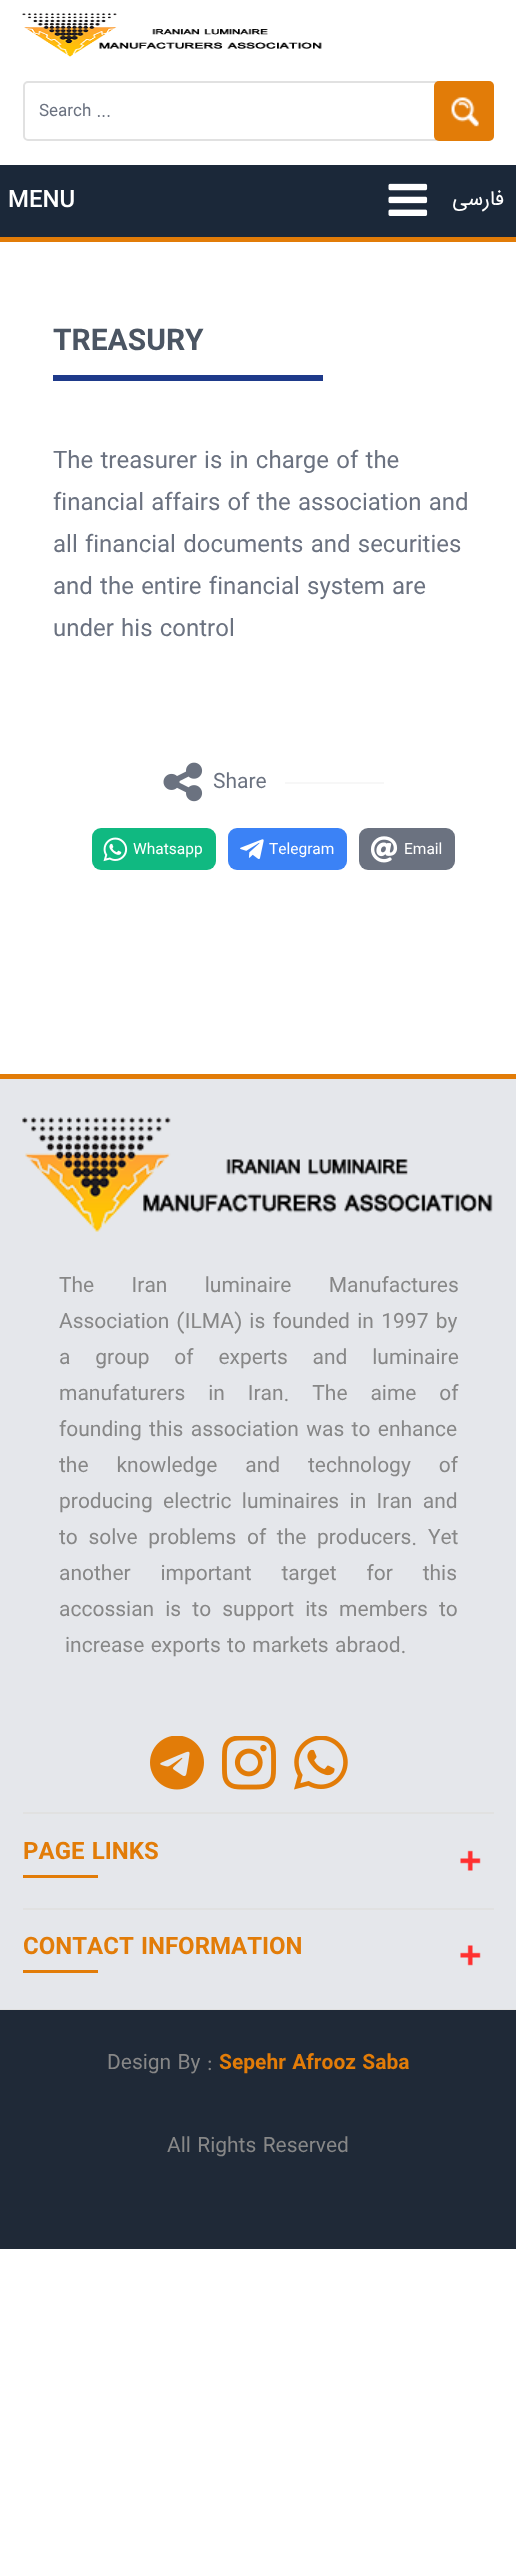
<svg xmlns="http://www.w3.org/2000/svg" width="516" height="2557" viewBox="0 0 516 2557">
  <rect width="100%" height="100%" fill="#ffffff"/>
  <image x="22" y="13" width="300" height="44" href="img1.png"/>
  <rect x="24" y="82" width="469" height="58" rx="4" fill="none" stroke="#e1e1e1" stroke-width="2"/>
  <text x="39" y="116" font-family="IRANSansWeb" font-size="17" fill="#6b7280">Search ...</text>
  <rect x="434" y="81" width="60" height="60" rx="5" fill="#e27c08"/>
  <image x="451" y="97" width="28" height="30" href="img2.png"/>
  <rect x="0" y="165" width="516" height="72" fill="#1b2839"/>
  <text x="8" y="207" font-family="IRANSansWeb" font-size="24" font-weight="500" fill="#ffffff">MENU</text>
  <image x="388" y="183" width="40" height="33" href="img3.png"/>
  <text x="504" y="205" font-family="IRANSansWeb" font-size="21" direction="rtl" fill="#ffffff">فارسی</text>
  <rect x="0" y="237" width="516" height="5" fill="#e27c08"/>
  <rect x="53" y="375" width="270" height="6" fill="#1e3a8a"/>
  <text x="53" y="350" font-family="IRANSansWeb" font-size="30" font-weight="bold" fill="#4b5563">TREASURY</text>
  <text x="53" y="468" font-family="IRANSansWeb" font-size="24" fill="#6b7280">The treasurer is in charge of the</text>
  <text x="53" y="510" font-family="IRANSansWeb" font-size="24" fill="#6b7280">financial affairs of the association and</text>
  <text x="53" y="552" font-family="IRANSansWeb" font-size="24" fill="#6b7280">all financial documents and securities</text>
  <text x="53" y="594" font-family="IRANSansWeb" font-size="24" fill="#6b7280">and the entire financial system are</text>
  <text x="53" y="636" font-family="IRANSansWeb" font-size="24" fill="#6b7280">under his control</text>
  <image x="163" y="762" width="40" height="40" href="img4.png"/>
  <text x="213" y="788" font-family="IRANSansWeb" font-size="21" fill="#6b7280">Share</text>
  <rect x="285" y="782" width="99" height="2" fill="#f7f7f7"/>
  <rect x="92" y="828" width="124" height="42" rx="9" fill="#10b981"/>
  <image x="103" y="837" width="25" height="25" href="img5.png"/>
  <text x="133" y="854" font-family="IRANSansWeb" font-size="15.5" fill="#ffffff">Whatsapp</text>
  <rect x="228" y="828" width="119" height="42" rx="9" fill="#3b82f6"/>
  <image x="240" y="839" width="24" height="20" href="img6.png"/>
  <text x="269" y="854" font-family="IRANSansWeb" font-size="15.5" fill="#ffffff">Telegram</text>
  <rect x="359" y="828" width="96" height="42" rx="9" fill="#6b7280"/>
  <image x="370" y="836" width="28" height="27" href="img7.png"/>
  <text x="404" y="854" font-family="IRANSansWeb" font-size="15.5" fill="#ffffff">Email</text>
  <rect x="0" y="1074" width="516" height="5" fill="#e27c08"/>
  <rect x="0" y="1079" width="516" height="930" fill="#e5e7eb"/>
  <rect x="23" y="1812" width="471" height="2" fill="#e1e1e1"/>
  <image x="22" y="1117" width="471" height="115" href="img8.png"/>
  <text x="59" y="1292" word-spacing="31" font-family="IRANSansWeb" font-size="21" fill="#878787">The Iran luminaire Manufactures</text>
  <text x="59" y="1328" word-spacing="1" font-family="IRANSansWeb" font-size="21" fill="#878787">Association (ILMA) is founded in 1997 by</text>
  <text x="59" y="1364" word-spacing="18.5" font-family="IRANSansWeb" font-size="21" fill="#878787">a group of experts and luminaire</text>
  <text x="59" y="1400" word-spacing="16.5" font-family="IRANSansWeb" font-size="21" fill="#878787">manufaturers in Iran. The aime of</text>
  <text x="59" y="1436" word-spacing="1" font-family="IRANSansWeb" font-size="21" fill="#878787">founding this association was to enhance</text>
  <text x="59" y="1472" word-spacing="21.5" font-family="IRANSansWeb" font-size="21" fill="#878787">the knowledge and technology of</text>
  <text x="59" y="1508" word-spacing="4" font-family="IRANSansWeb" font-size="21" fill="#878787">producing electric luminaires in Iran and</text>
  <text x="59" y="1544" word-spacing="4.25" font-family="IRANSansWeb" font-size="21" fill="#878787">to solve problems of the producers. Yet</text>
  <text x="59" y="1580" word-spacing="23.5" font-family="IRANSansWeb" font-size="21" fill="#878787">another important target for this</text>
  <text x="59" y="1616" word-spacing="4.75" font-family="IRANSansWeb" font-size="21" fill="#878787">accossian is to support its members to</text>
  <text x="65" y="1652" font-family="IRANSansWeb" font-size="21" fill="#878787">increase exports to markets abraod.</text>
  <image x="150" y="1736" width="54" height="54" href="img9.png"/>
  <image x="222" y="1736" width="54" height="54" href="img10.png"/>
  <image x="294" y="1736" width="54" height="54" href="img11.png"/>
  <rect x="23" y="1908" width="471" height="2" fill="#e1e1e1"/>
  <text x="23" y="1859" font-family="IRANSansWeb" font-size="24" font-weight="bold" fill="#e27c08">PAGE LINKS</text>
  <rect x="23" y="1875" width="75" height="3" fill="#e27c08"/>
  <image x="460" y="1850" width="21" height="21" href="img12.png"/>
  <text x="23" y="1954" font-family="IRANSansWeb" font-size="24" font-weight="bold" fill="#e27c08">CONTACT INFORMATION</text>
  <rect x="23" y="1970" width="75" height="3" fill="#e27c08"/>
  <image x="460" y="1945" width="21" height="21" href="img13.png"/>
  <rect x="0" y="2009" width="516" height="1" fill="#e1e1e1"/>
  <rect x="0" y="2010" width="516" height="239" fill="#1f2937"/>
  <text x="107" y="2069" font-family="IRANSansWeb" font-size="21" fill="#878787">Design By :</text>
  <text x="219" y="2069" font-family="IRANSansWeb" font-size="21" font-weight="bold" fill="#e27c08">Sepehr Afrooz Saba</text>
  <text x="167" y="2152" font-family="IRANSansWeb" font-size="21" fill="#878787">All Rights Reserved</text>
</svg>
